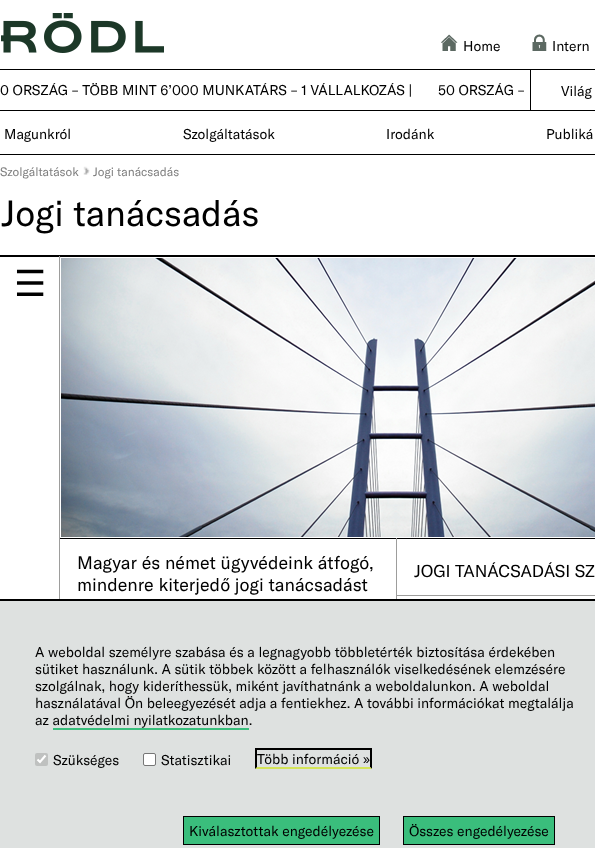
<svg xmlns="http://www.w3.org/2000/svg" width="595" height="848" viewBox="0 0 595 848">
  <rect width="100%" height="100%" fill="#ffffff"/>
  <image x="1" y="13" width="163" height="40" href="img1.png"/>
  <image x="441" y="34" width="17" height="17" href="img2.png"/>
  <text x="463" y="51" font-family="GT America" font-size="14" fill="#000000">Home</text>
  <image x="532" y="34" width="15" height="17" href="img3.png"/>
  <text x="552" y="51" font-family="GT America" font-size="14" fill="#000000">Intern</text>
  <rect x="0" y="69" width="595" height="1" fill="#000000"/>
  <rect x="0" y="110" width="595" height="1" fill="#000000"/>
  <text x="0" y="95" font-family="GT America" font-size="14" fill="#000000">0 ORSZÁG – TÖBB MINT 6’000 MUNKATÁRS – 1 VÁLLALKOZÁS |</text>
  <text x="438" y="95" font-family="GT America" font-size="14" fill="#000000">50 ORSZÁG –</text>
  <rect x="530" y="69" width="1" height="42" fill="#000000"/>
  <text x="561" y="96" font-family="GT America" font-size="14" fill="#000000">Világ</text>
  <rect x="0" y="154" width="595" height="1" fill="#000000"/>
  <text x="4" y="139" font-family="GT America" font-size="14" fill="#000000">Magunkról</text>
  <text x="183" y="139" font-family="GT America" font-size="14" fill="#000000">Szolgáltatások</text>
  <text x="386" y="139" font-family="GT America" font-size="14" fill="#000000">Irodánk</text>
  <text x="546" y="139" font-family="GT America" font-size="14" fill="#000000">Publiká</text>
  <text x="0" y="176" font-family="GT America" font-size="12" fill="#808080">Szolgáltatások</text>
  <image x="83" y="166" width="7" height="9" href="img4.png"/>
  <text x="93" y="176" font-family="GT America" font-size="12" fill="#808080">Jogi tanácsadás</text>
  <rect x="0" y="255" width="595" height="1" fill="#000000"/>
  <text x="1" y="226" font-family="GT America" font-size="36" fill="#000000">Jogi tanácsadás</text>
  <rect x="0" y="256" width="59" height="1" fill="#000000"/>
  <text x="14" y="296" font-family="DejaVu Sans" font-size="36" fill="#000000">☰</text>
  <rect x="59" y="256" width="1" height="343" fill="#9d9d9c"/>
  <rect x="60" y="256" width="535" height="1" fill="#000000"/>
  <image x="60" y="257" width="535" height="281" href="img5.png"/>
  <rect x="60" y="538" width="535" height="1" fill="#000000"/>
  <text x="77" y="569" font-family="GT America" font-size="18" fill="#000000">Magyar és német ügyvédeink átfogó,</text>
  <text x="77" y="591" font-family="GT America" font-size="18" fill="#000000">mindenre kiterjedő jogi tanácsadást</text>
  <rect x="396" y="538" width="1" height="61" fill="#9d9d9c"/>
  <text x="414" y="577" font-family="GT America" font-size="17" fill="#000000">JOGI TANÁCSADÁSI SZ</text>
  <rect x="397" y="595" width="198" height="1" fill="#9d9d9c"/>
  <rect x="0" y="601" width="595" height="247" fill="#dee1e0"/>
  <rect x="0" y="599" width="595" height="2" fill="#000000"/>
  <text x="35" y="657" font-family="GT America" font-size="14" fill="#000000">A weboldal személyre szabása és a legnagyobb többletérték biztosítása érdekében</text>
  <text x="35" y="674" font-family="GT America" font-size="14" fill="#000000">sütiket használunk. A sütik többek között a felhasználók viselkedésének elemzésére</text>
  <text x="35" y="691" font-family="GT America" font-size="14" fill="#000000">szolgálnak, hogy kideríthessük, miként javíthatnánk a weboldalunkon. A weboldal</text>
  <text x="35" y="708" font-family="GT America" font-size="14" fill="#000000">használatával Ön beleegyezését adja a fentiekhez. A további információkat megtalálja</text>
  <text x="35" y="725" font-family="GT America" font-size="14" fill="#000000">az adatvédelmi nyilatkozatunkban.</text>
  <rect x="53" y="728" width="196" height="2" fill="#3abe7c"/>
  <rect x="35" y="753" width="13" height="13" rx="2" fill="#bfc1c0"/>
  <path d="M37.5 759.5L40 762L45.5 755.5" fill="none" stroke="#ffffff" stroke-width="2.1"/>
  <text x="53" y="765" font-family="GT America" font-size="14" fill="#000000">Szükséges</text>
  <rect x="143.5" y="753.5" width="12" height="12" rx="1.5" fill="#ffffff" stroke="#767676"/>
  <text x="161" y="765" font-family="GT America" font-size="14" fill="#000000">Statisztikai</text>
  <rect x="255" y="748" width="117" height="2" fill="#000000"/>
  <path d="M372 748V769L370 767V750Z" fill="#000000"/>
  <path d="M372 769H255L257 767H370Z" fill="#d4e458"/>
  <path d="M255 769V748L257 750V767Z" fill="#000000"/>
  <text x="257" y="764" font-family="GT America" font-size="14" fill="#000000">Több információ »</text>
  <rect x="183.5" y="816.5" width="196" height="28" fill="#3abe7c" stroke="#000000"/>
  <text x="189" y="836" font-family="GT America" font-size="14" fill="#000000">Kiválasztottak engedélyezése</text>
  <rect x="403.5" y="816.5" width="151" height="28" fill="#3abe7c" stroke="#000000"/>
  <text x="409" y="836" font-family="GT America" font-size="14" fill="#000000">Összes engedélyezése</text>
</svg>
